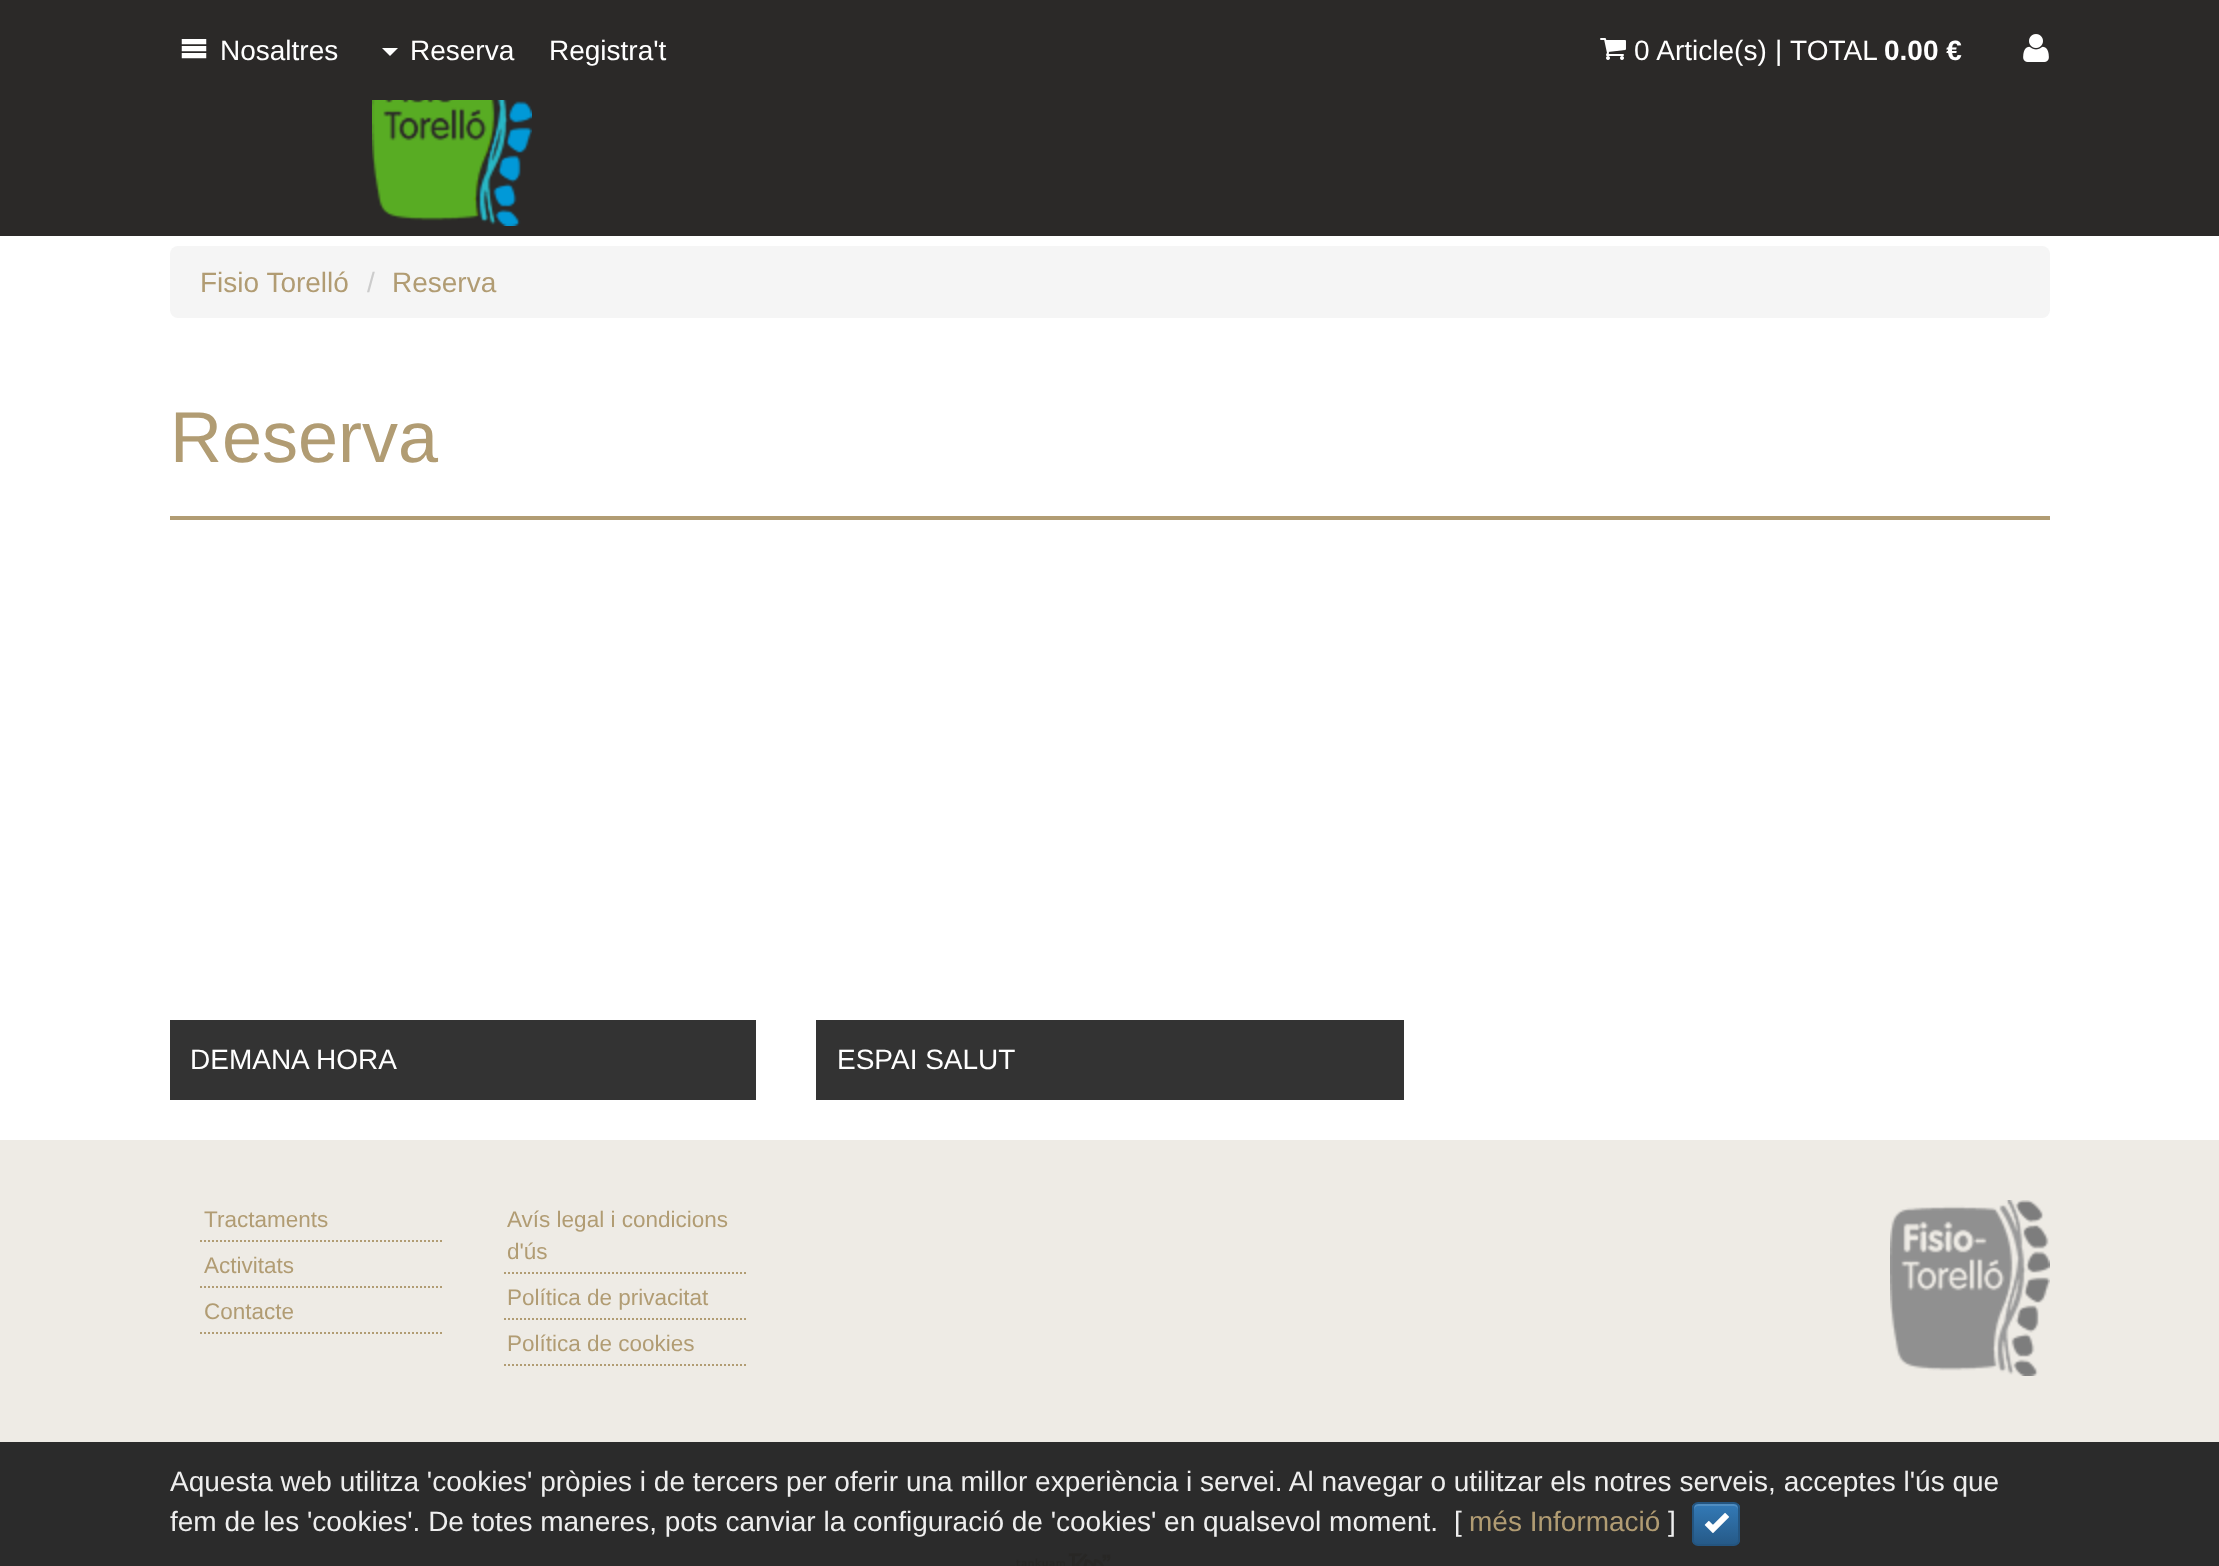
<svg xmlns="http://www.w3.org/2000/svg" width="2219" height="1566" viewBox="0 0 2219 1566">
  <defs>
    <clipPath id="clip1"><rect x="1692" y="1502" width="48" height="44" rx="6"/></clipPath>
    <linearGradient id="g1" gradientUnits="userSpaceOnUse" x1="1716" y1="1504" x2="1716" y2="1544"><stop offset="0" stop-color="#337ab7"/><stop offset="1" stop-color="#265a88"/></linearGradient>
  </defs>
  <rect width="100%" height="100%" fill="#ffffff"/>
  <rect x="0" y="0" width="2219" height="236" fill="#2b2928"/>
  <image x="372" y="100" width="160" height="126" href="img1.png"/>
  <image x="181" y="39" width="26" height="20" href="img2.png"/>
  <text x="220" y="60" font-family="Liberation Sans" font-size="28" fill="#ffffff">Nosaltres</text>
  <path d="M382 48H398L390 56Z" fill="#ffffff"/>
  <text x="410" y="60" font-family="Liberation Sans" font-size="28" fill="#ffffff">Reserva</text>
  <text x="549" y="60" font-family="Liberation Sans" font-size="28" fill="#ffffff">Registra't</text>
  <image x="1600" y="38" width="26" height="22" href="img3.png"/>
  <text x="1634" y="60" word-spacing="0.5" font-family="Liberation Sans" font-size="28" fill="#ffffff">0 Article(s) | TOTAL</text>
  <text x="1884" y="60" font-family="Liberation Sans" font-size="28" font-weight="bold" fill="#ffffff">0.00 €</text>
  <image x="2023" y="34" width="26" height="28" href="img4.png"/>
  <rect x="170" y="246" width="1880" height="72" rx="8" fill="#f5f5f5"/>
  <text x="200" y="292" font-family="Liberation Sans" font-size="28" fill="#b19c73">Fisio Torelló</text>
  <text x="367" y="292" font-family="Liberation Sans" font-size="28" fill="#cccccc">/</text>
  <text x="392" y="292" font-family="Liberation Sans" font-size="28" fill="#b19c73">Reserva</text>
  <rect x="170" y="516" width="1880" height="4" fill="#b19c73"/>
  <text x="170" y="462" font-family="Liberation Sans" font-size="72" fill="#b19c73">Reserva</text>
  <rect x="170" y="1020" width="586" height="80" fill="#333333"/>
  <text x="190" y="1069" font-family="Liberation Sans" font-size="28" fill="#ffffff">DEMANA HORA</text>
  <rect x="816" y="1020" width="588" height="80" fill="#333333"/>
  <text x="837" y="1069" font-family="Liberation Sans" font-size="28" fill="#ffffff">ESPAI SALUT</text>
  <rect x="0" y="1140" width="2219" height="302" fill="#eeebe5"/>
  <rect x="0" y="1442" width="2219" height="124" fill="#2b2b2b"/>
  <path d="M200 1241H444" fill="none" stroke="#b19c73" stroke-width="2" stroke-dasharray="2 2"/>
  <text x="204" y="1227" font-family="Liberation Sans" font-size="22.5" fill="#b19c73">Tractaments</text>
  <path d="M200 1287H444" fill="none" stroke="#b19c73" stroke-width="2" stroke-dasharray="2 2"/>
  <text x="204" y="1273" font-family="Liberation Sans" font-size="22.5" fill="#b19c73">Activitats</text>
  <path d="M200 1333H444" fill="none" stroke="#b19c73" stroke-width="2" stroke-dasharray="2 2"/>
  <text x="204" y="1319" font-family="Liberation Sans" font-size="22.5" fill="#b19c73">Contacte</text>
  <path d="M504 1273H746" fill="none" stroke="#b19c73" stroke-width="2" stroke-dasharray="2 2"/>
  <text x="507" y="1227" font-family="Liberation Sans" font-size="22.5" fill="#b19c73">Avís legal i condicions</text>
  <text x="507" y="1259" font-family="Liberation Sans" font-size="22.5" fill="#b19c73">d'ús</text>
  <path d="M504 1319H746" fill="none" stroke="#b19c73" stroke-width="2" stroke-dasharray="2 2"/>
  <text x="507" y="1305" font-family="Liberation Sans" font-size="22.5" fill="#b19c73">Política de privacitat</text>
  <path d="M504 1365H746" fill="none" stroke="#b19c73" stroke-width="2" stroke-dasharray="2 2"/>
  <text x="507" y="1351" font-family="Liberation Sans" font-size="22.5" fill="#b19c73">Política de cookies</text>
  <image x="1890" y="1200" width="160" height="176" href="img5.png"/>
  <image x="1010" y="1553" width="101" height="13" href="img6.png"/>
  <text x="170" y="1491" font-family="Liberation Sans" font-size="28" fill="#eeeeee">Aquesta web utilitza 'cookies' pròpies i de tercers per oferir una millor experiència i servei. Al navegar o utilitzar els notres serveis, acceptes l'ús que</text>
  <text x="170" y="1531" font-family="Liberation Sans" font-size="28" fill="#eeeeee">fem de les 'cookies'. De totes maneres, pots canviar la configuració de 'cookies' en qualsevol moment.</text>
  <text x="1454" y="1531" font-family="Liberation Sans" font-size="28" fill="#eeeeee">[</text>
  <text x="1469" y="1531" font-family="Liberation Sans" font-size="28" fill="#b19c73">més Informació</text>
  <text x="1668" y="1531" font-family="Liberation Sans" font-size="28" fill="#eeeeee">]</text>
  <g clip-path="url(#clip1)">
    <rect x="1692" y="1504" width="48" height="40" fill="url(#g1)"/>
  </g>
  <path d="M1698 1506H1734C1736 1506 1738 1508 1738 1510C1738 1503 1734 1504 1728 1504H1704C1698 1504 1694 1503 1694 1510C1694 1508 1696 1506 1698 1506Z" fill="#ffffff" fill-opacity="0.15"/>
  <rect x="1693" y="1503" width="46" height="42" rx="5" fill="none" stroke="#245580" stroke-width="2"/>
  <image x="1704" y="1512" width="26" height="22" href="img7.png"/>
</svg>
